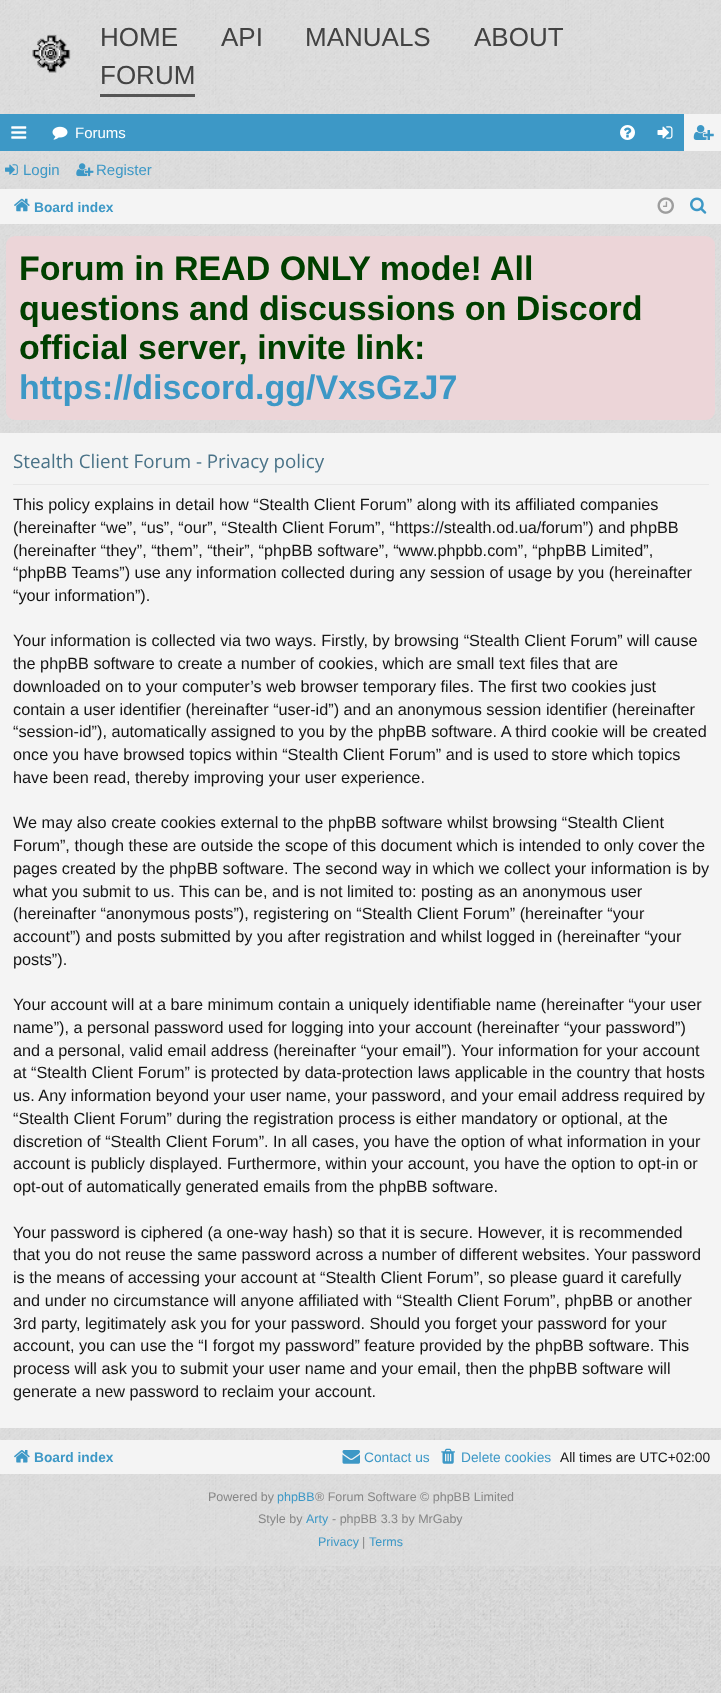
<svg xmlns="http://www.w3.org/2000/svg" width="721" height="1693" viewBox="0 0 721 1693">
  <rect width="100%" height="100%" fill="#e0e0e0"/>
  <image x="0" y="1566" width="721" height="127" href="img1.png"/>
  <image x="0" y="0" width="721" height="1693" href="img2.png"/>
  <image x="32" y="34" width="39" height="39" href="img3.png"/>
  <text x="100" y="46" font-family="Liberation Sans" font-size="26" fill="#424242">HOME</text>
  <text x="221" y="46" font-family="Liberation Sans" font-size="26" fill="#424242">API</text>
  <text x="305" y="46" font-family="Liberation Sans" font-size="26" fill="#424242">MANUALS</text>
  <text x="474" y="46" font-family="Liberation Sans" font-size="26" fill="#424242">ABOUT</text>
  <rect x="100" y="94" width="95" height="3" fill="#555555"/>
  <text x="100" y="84" font-family="Liberation Sans" font-size="26" fill="#424242">FORUM</text>
  <rect x="0" y="114" width="684" height="37" fill="#3d98c6"/>
  <image x="11" y="126" width="16" height="13" href="img4.png"/>
  <image x="52" y="126" width="16" height="14" href="img5.png"/>
  <text x="75" y="138" font-family="Liberation Sans" font-size="15" fill="#ffffff">Forums</text>
  <image x="620" y="125" width="15" height="15" href="img6.png"/>
  <image x="657" y="126" width="16" height="13" href="img7.png"/>
  <rect x="684" y="114" width="37" height="37" fill="#f4f4f4"/>
  <image x="693" y="125" width="21" height="15" href="img8.png"/>
  <image x="5" y="164" width="13" height="11" href="img9.png"/>
  <text x="23" y="175" font-family="Liberation Sans" font-size="15" fill="#3d98c6">Login</text>
  <image x="76" y="163" width="18" height="14" href="img10.png"/>
  <text x="96" y="175" font-family="Liberation Sans" font-size="15" fill="#3d98c6">Register</text>
  <rect x="0" y="189" width="721" height="35" fill="#f4f4f4"/>
  <image x="14" y="198" width="16" height="14" href="img11.png"/>
  <text x="34" y="212" font-family="Liberation Sans" font-size="13.75" font-weight="bold" fill="#3d98c6">Board index</text>
  <image x="657" y="197" width="17" height="17" href="img12.png"/>
  <image x="690" y="197" width="17" height="17" href="img13.png"/>
  <rect x="6" y="236" width="709" height="184" rx="9" fill="#ecd5d8"/>
  <text x="19" y="280" font-family="Liberation Sans" font-size="34" font-weight="bold" fill="#004000">Forum in READ ONLY mode! All</text>
  <text x="19" y="320" font-family="Liberation Sans" font-size="34" font-weight="bold" fill="#004000">questions and discussions on Discord</text>
  <text x="19" y="359" font-family="Liberation Sans" font-size="34" font-weight="bold" fill="#004000">official server, invite link:</text>
  <text x="19" y="399" font-family="Liberation Sans" font-size="34" font-weight="bold" fill="#3d98c6">https://discord.gg/VxsGzJ7</text>
  <rect x="0" y="433" width="721" height="995" fill="#f4f4f4"/>
  <rect x="13" y="484" width="696" height="1" fill="#e7e7e7"/>
  <text x="13" y="468" font-family="Open Sans" font-size="18.75" fill="#497287">Stealth Client Forum - Privacy policy</text>
  <text x="13" y="510" font-family="Liberation Sans" font-size="16.25" fill="#141414">This policy explains in detail how “Stealth Client Forum” along with its affiliated companies</text>
  <text x="13" y="533" font-family="Liberation Sans" font-size="16.25" fill="#141414">(hereinafter “we”, “us”, “our”, “Stealth Client Forum”, “https://stealth.od.ua/forum”) and phpBB</text>
  <text x="13" y="556" font-family="Liberation Sans" font-size="16.25" fill="#141414">(hereinafter “they”, “them”, “their”, “phpBB software”, “www.phpbb.com”, “phpBB Limited”,</text>
  <text x="13" y="578" font-family="Liberation Sans" font-size="16.25" fill="#141414">“phpBB Teams”) use any information collected during any session of usage by you (hereinafter</text>
  <text x="13" y="601" font-family="Liberation Sans" font-size="16.25" fill="#141414">“your information”).</text>
  <text x="13" y="646" font-family="Liberation Sans" font-size="16.25" fill="#141414">Your information is collected via two ways. Firstly, by browsing “Stealth Client Forum” will cause</text>
  <text x="13" y="669" font-family="Liberation Sans" font-size="16.25" fill="#141414">the phpBB software to create a number of cookies, which are small text files that are</text>
  <text x="13" y="692" font-family="Liberation Sans" font-size="16.25" fill="#141414">downloaded on to your computer’s web browser temporary files. The first two cookies just</text>
  <text x="13" y="715" font-family="Liberation Sans" font-size="16.25" fill="#141414">contain a user identifier (hereinafter “user-id”) and an anonymous session identifier (hereinafter</text>
  <text x="13" y="737" font-family="Liberation Sans" font-size="16.25" fill="#141414">“session-id”), automatically assigned to you by the phpBB software. A third cookie will be created</text>
  <text x="13" y="760" font-family="Liberation Sans" font-size="16.25" fill="#141414">once you have browsed topics within “Stealth Client Forum” and is used to store which topics</text>
  <text x="13" y="783" font-family="Liberation Sans" font-size="16.25" fill="#141414">have been read, thereby improving your user experience.</text>
  <text x="13" y="828" font-family="Liberation Sans" font-size="16.25" fill="#141414">We may also create cookies external to the phpBB software whilst browsing “Stealth Client</text>
  <text x="13" y="851" font-family="Liberation Sans" font-size="16.25" fill="#141414">Forum”, though these are outside the scope of this document which is intended to only cover the</text>
  <text x="13" y="874" font-family="Liberation Sans" font-size="16.25" fill="#141414">pages created by the phpBB software. The second way in which we collect your information is by</text>
  <text x="13" y="897" font-family="Liberation Sans" font-size="16.25" fill="#141414">what you submit to us. This can be, and is not limited to: posting as an anonymous user</text>
  <text x="13" y="919" font-family="Liberation Sans" font-size="16.25" fill="#141414">(hereinafter “anonymous posts”), registering on “Stealth Client Forum” (hereinafter “your</text>
  <text x="13" y="942" font-family="Liberation Sans" font-size="16.25" fill="#141414">account”) and posts submitted by you after registration and whilst logged in (hereinafter “your</text>
  <text x="13" y="965" font-family="Liberation Sans" font-size="16.25" fill="#141414">posts”).</text>
  <text x="13" y="1010" font-family="Liberation Sans" font-size="16.25" fill="#141414">Your account will at a bare minimum contain a uniquely identifiable name (hereinafter “your user</text>
  <text x="13" y="1033" font-family="Liberation Sans" font-size="16.25" fill="#141414">name”), a personal password used for logging into your account (hereinafter “your password”)</text>
  <text x="13" y="1056" font-family="Liberation Sans" font-size="16.25" fill="#141414">and a personal, valid email address (hereinafter “your email”). Your information for your account</text>
  <text x="13" y="1078" font-family="Liberation Sans" font-size="16.25" fill="#141414">at “Stealth Client Forum” is protected by data-protection laws applicable in the country that hosts</text>
  <text x="13" y="1101" font-family="Liberation Sans" font-size="16.25" fill="#141414">us. Any information beyond your user name, your password, and your email address required by</text>
  <text x="13" y="1124" font-family="Liberation Sans" font-size="16.25" fill="#141414">“Stealth Client Forum” during the registration process is either mandatory or optional, at the</text>
  <text x="13" y="1147" font-family="Liberation Sans" font-size="16.25" fill="#141414">discretion of “Stealth Client Forum”. In all cases, you have the option of what information in your</text>
  <text x="13" y="1169" font-family="Liberation Sans" font-size="16.25" fill="#141414">account is publicly displayed. Furthermore, within your account, you have the option to opt-in or</text>
  <text x="13" y="1192" font-family="Liberation Sans" font-size="16.25" fill="#141414">opt-out of automatically generated emails from the phpBB software.</text>
  <text x="13" y="1238" font-family="Liberation Sans" font-size="16.25" fill="#141414">Your password is ciphered (a one-way hash) so that it is secure. However, it is recommended</text>
  <text x="13" y="1260" font-family="Liberation Sans" font-size="16.25" fill="#141414">that you do not reuse the same password across a number of different websites. Your password</text>
  <text x="13" y="1283" font-family="Liberation Sans" font-size="16.25" fill="#141414">is the means of accessing your account at “Stealth Client Forum”, so please guard it carefully</text>
  <text x="13" y="1306" font-family="Liberation Sans" font-size="16.25" fill="#141414">and under no circumstance will anyone affiliated with “Stealth Client Forum”, phpBB or another</text>
  <text x="13" y="1329" font-family="Liberation Sans" font-size="16.25" fill="#141414">3rd party, legitimately ask you for your password. Should you forget your password for your</text>
  <text x="13" y="1351" font-family="Liberation Sans" font-size="16.25" fill="#141414">account, you can use the “I forgot my password” feature provided by the phpBB software. This</text>
  <text x="13" y="1374" font-family="Liberation Sans" font-size="16.25" fill="#141414">process will ask you to submit your user name and your email, then the phpBB software will</text>
  <text x="13" y="1397" font-family="Liberation Sans" font-size="16.25" fill="#141414">generate a new password to reclaim your account.</text>
  <rect x="0" y="1440" width="721" height="34" fill="#f4f4f4"/>
  <image x="14" y="1450" width="16" height="13" href="img14.png"/>
  <text x="34" y="1462" font-family="Liberation Sans" font-size="13.75" font-weight="bold" fill="#3d98c6">Board index</text>
  <image x="342" y="1450" width="18" height="14" href="img15.png"/>
  <text x="364" y="1462" font-family="Liberation Sans" font-size="13.75" fill="#3d98c6">Contact us</text>
  <image x="441" y="1448" width="14" height="16" href="img16.png"/>
  <text x="461" y="1462" font-family="Liberation Sans" font-size="13.75" fill="#3d98c6">Delete cookies</text>
  <text x="560" y="1462" font-family="Liberation Sans" font-size="13.75" fill="#141414">All times are UTC+02:00</text>
  <text x="208" y="1501" font-family="Liberation Sans" font-size="12.5" fill="#868686">Powered by</text>
  <text x="277" y="1501" font-family="Liberation Sans" font-size="12.5" fill="#3d98c6">phpBB</text>
  <text x="315" y="1501" font-family="Liberation Sans" font-size="12.5" fill="#868686">® Forum Software © phpBB Limited</text>
  <text x="258" y="1523" font-family="Liberation Sans" font-size="12.5" fill="#868686">Style by</text>
  <text x="306" y="1523" font-family="Liberation Sans" font-size="12.5" fill="#3d98c6">Arty</text>
  <text x="332" y="1523" font-family="Liberation Sans" font-size="12.5" fill="#868686">- phpBB 3.3 by MrGaby</text>
  <text x="318" y="1546" font-family="Liberation Sans" font-size="12.5" fill="#3d98c6">Privacy</text>
  <text x="362" y="1546" font-family="Liberation Sans" font-size="12.5" fill="#868686">|</text>
  <text x="369" y="1546" font-family="Liberation Sans" font-size="12.5" fill="#3d98c6">Terms</text>
</svg>
